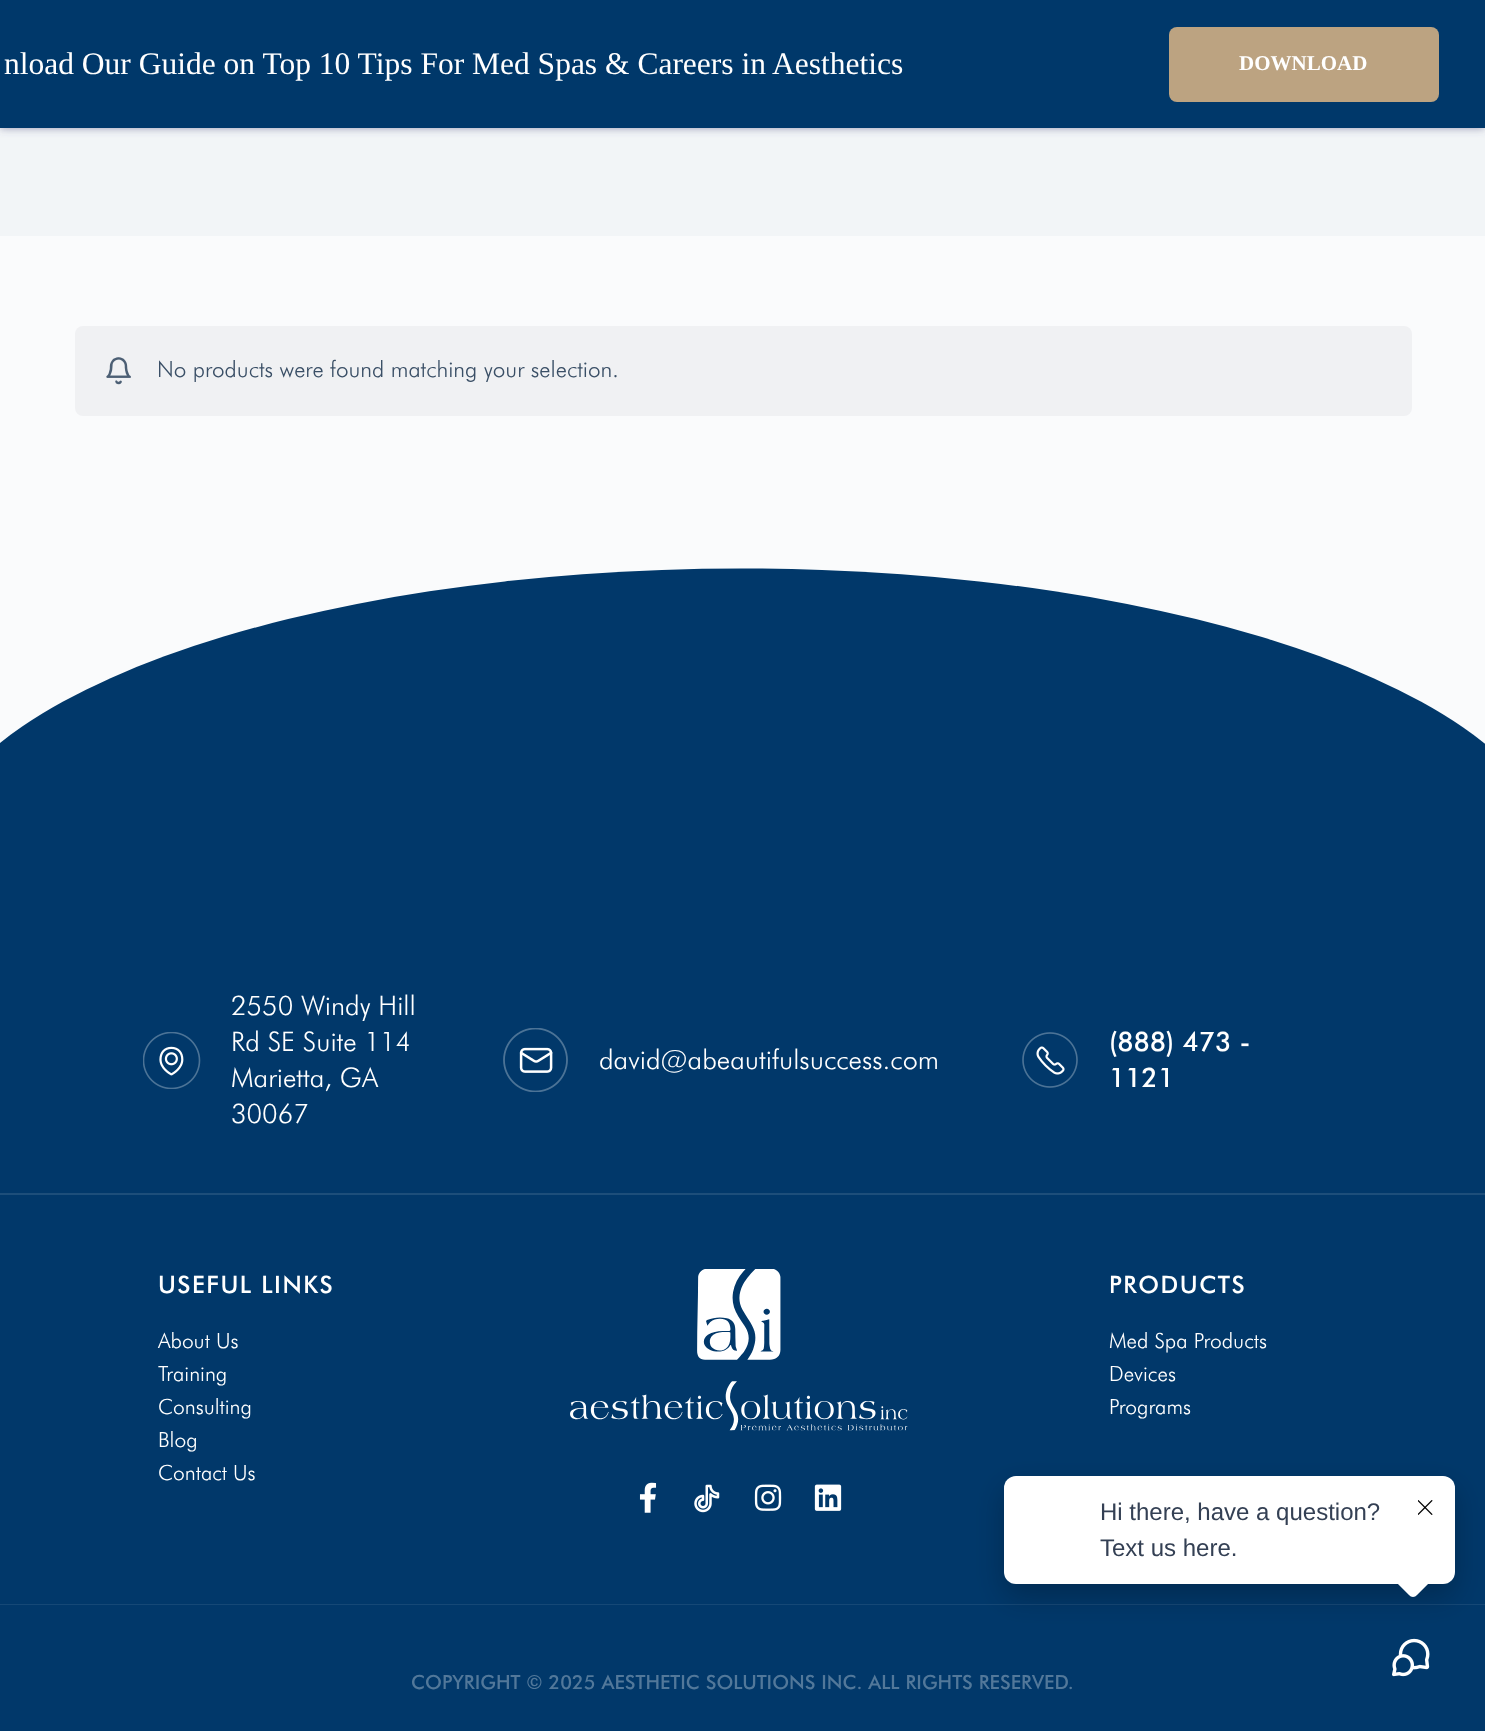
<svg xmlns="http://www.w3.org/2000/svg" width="1485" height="1731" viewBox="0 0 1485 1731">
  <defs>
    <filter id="blur1" x="-50%" y="-200%" width="200%" height="500%"><feGaussianBlur stdDeviation="4"/></filter>
    <clipPath id="clip1"><rect x="0" y="554" width="1485" height="300"/></clipPath>
    <filter id="blur2" x="-50%" y="-200%" width="200%" height="500%"><feGaussianBlur stdDeviation="15"/></filter>
  </defs>
  <rect width="100%" height="100%" fill="#fafbfc"/>
  <rect x="0" y="128" width="1485" height="108" fill="#f2f5f7"/>
  <rect x="0" y="0" width="1485" height="128" fill="#565683" fill-opacity="0.6" filter="url(#blur1)"/>
  <rect x="0" y="0" width="1485" height="128" fill="#00386a"/>
  <text x="4" y="74" font-family="Liberation Serif" font-size="31.5" fill="#ffffff">nload Our Guide on Top 10 Tips For Med Spas &amp; Careers in Aesthetics</text>
  <rect x="1169" y="27" width="270" height="75" rx="8" fill="#bca381"/>
  <text x="1239" y="70" font-family="Liberation Serif" font-size="21" font-weight="bold" fill="#ffffff">DOWNLOAD</text>
  <rect x="75" y="326" width="1337" height="90" rx="8" fill="#f0f1f3"/>
  <image x="106" y="357" width="25" height="28" href="img1.png"/>
  <text x="157" y="377" font-family="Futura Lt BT" font-size="22.5" font-weight="300" fill="#3a4f66">No products were found matching your selection.</text>
  <rect x="0" y="854" width="1485" height="750" fill="#01386a"/>
  <rect x="0" y="1604" width="1485" height="1" fill="#154876"/>
  <g clip-path="url(#clip1)">
    <ellipse cx="742" cy="868.5" rx="817" ry="300" fill="#01386a"/>
  </g>
  <rect x="0" y="1193" width="1485" height="2" fill="#1d4e7a"/>
  <image x="143" y="1032" width="58" height="57" href="img2.png"/>
  <text x="231" y="1015" font-family="Futura Lt BT" font-size="27" font-weight="300" fill="#ffffff">2550 Windy Hill</text>
  <text x="231" y="1051" font-family="Futura Lt BT" font-size="27" font-weight="300" fill="#ffffff">Rd SE Suite 114</text>
  <text x="231" y="1087" font-family="Futura Lt BT" font-size="27" font-weight="300" fill="#ffffff">Marietta, GA</text>
  <text x="231" y="1123" font-family="Futura Lt BT" font-size="27" font-weight="300" fill="#ffffff">30067</text>
  <image x="503" y="1028" width="65" height="64" href="img3.png"/>
  <text x="599" y="1069" font-family="Futura Lt BT" font-size="27" font-weight="300" fill="#ffffff">david@abeautifulsuccess.com</text>
  <image x="1022" y="1032" width="56" height="56" href="img4.png"/>
  <text x="1109" y="1051" font-family="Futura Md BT" font-size="27" font-weight="500" fill="#ffffff">(888) 473 -</text>
  <text x="1109" y="1087" font-family="Futura Md BT" font-size="27" font-weight="500" fill="#ffffff">1121</text>
  <text x="158" y="1293" font-family="Futura Md BT" font-size="24" font-weight="500" letter-spacing="1.5" fill="#ffffff">USEFUL LINKS</text>
  <text x="158" y="1348" font-family="Futura Lt BT" font-size="21" font-weight="300" fill="#ffffff">About Us</text>
  <text x="158" y="1381" font-family="Futura Lt BT" font-size="21" font-weight="300" fill="#ffffff">Training</text>
  <text x="158" y="1414" font-family="Futura Lt BT" font-size="21" font-weight="300" fill="#ffffff">Consulting</text>
  <text x="158" y="1447" font-family="Futura Lt BT" font-size="21" font-weight="300" fill="#ffffff">Blog</text>
  <text x="158" y="1480" font-family="Futura Lt BT" font-size="21" font-weight="300" fill="#ffffff">Contact Us</text>
  <image x="570" y="1269" width="338" height="162" href="img5.png"/>
  <image x="639" y="1482" width="18" height="31" href="img6.png"/>
  <image x="694" y="1484" width="26" height="29" href="img7.png"/>
  <image x="754" y="1484" width="28" height="27" href="img8.png"/>
  <image x="814" y="1484" width="28" height="27" href="img9.png"/>
  <text x="1109" y="1293" font-family="Futura Md BT" font-size="24" font-weight="500" letter-spacing="1.5" fill="#ffffff">PRODUCTS</text>
  <text x="1109" y="1348" font-family="Futura Lt BT" font-size="21" font-weight="300" fill="#ffffff">Med Spa Products</text>
  <text x="1109" y="1381" font-family="Futura Lt BT" font-size="21" font-weight="300" fill="#ffffff">Devices</text>
  <text x="1109" y="1414" font-family="Futura Lt BT" font-size="21" font-weight="300" fill="#ffffff">Programs</text>
  <rect x="0" y="1605" width="1485" height="126" fill="#01386a"/>
  <text x="411" y="1689" font-family="Futura Md BT" font-size="19.5" font-weight="500" fill="#52789a">COPYRIGHT © 2025 AESTHETIC SOLUTIONS INC. ALL RIGHTS RESERVED.</text>
  <image x="1392" y="1638" width="38" height="39" href="img11.png"/>
  <rect x="1004" y="1488" width="451" height="108" rx="12" fill="#000000" fill-opacity="0.24" filter="url(#blur2)"/>
  <rect x="1004" y="1476" width="451" height="108" rx="12" fill="#ffffff"/>
  <text x="1100" y="1520" font-family="Liberation Sans" font-size="24" fill="#344054">Hi there, have a question?</text>
  <text x="1100" y="1556" font-family="Liberation Sans" font-size="24" fill="#344054">Text us here.</text>
  <path d="M1417 1561L1430 1574C1432.5 1576 1432.5 1580 1430 1582L1417 1595C1415 1597.5 1411 1597.5 1409 1595L1396 1582C1393.5 1580 1393.5 1576 1396 1574L1409 1561C1411 1558.5 1415 1558.5 1417 1561Z" fill="#ffffff"/>
  <image x="1418" y="1500" width="15" height="15" href="img10.png"/>
</svg>
